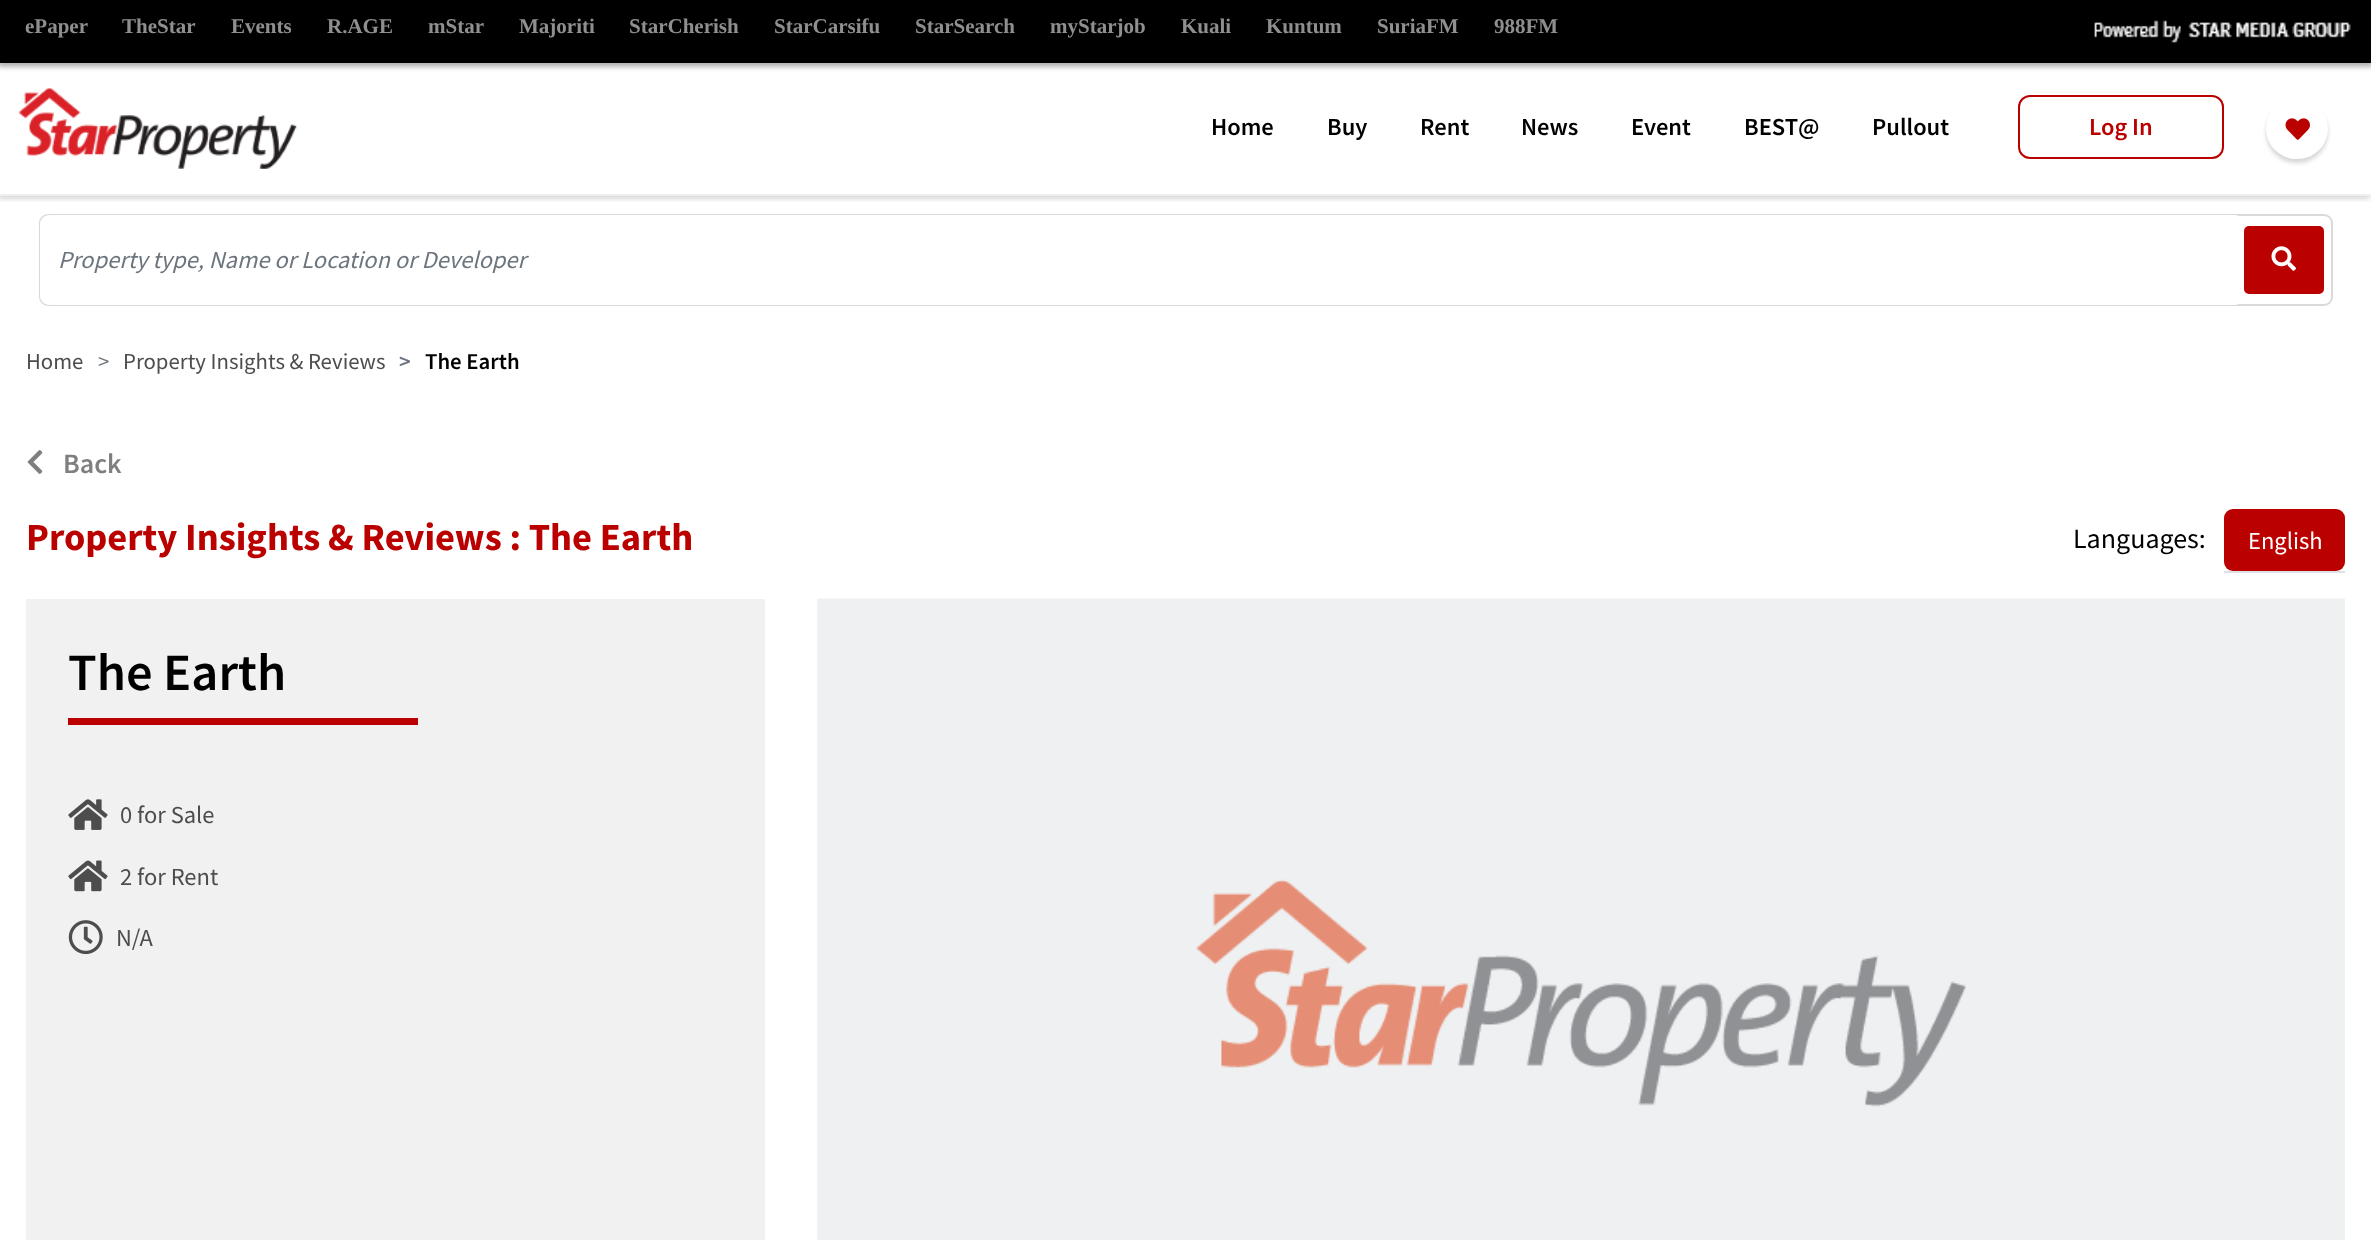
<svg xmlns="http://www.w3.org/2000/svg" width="2371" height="1240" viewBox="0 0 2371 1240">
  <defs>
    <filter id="blur1" x="-50%" y="-200%" width="200%" height="500%"><feGaussianBlur stdDeviation="2.5"/></filter>
    <clipPath id="clip1"><rect x="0" y="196" width="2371" height="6"/></clipPath>
    <filter id="blur2" x="-50%" y="-200%" width="200%" height="500%"><feGaussianBlur stdDeviation="3.5"/></filter>
    <filter id="blur3" x="-50%" y="-200%" width="200%" height="500%"><feGaussianBlur stdDeviation="2"/></filter>
  </defs>
  <rect width="100%" height="100%" fill="#ffffff"/>
  <rect x="-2" y="0" width="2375" height="67" fill="#000000" fill-opacity="0.3" filter="url(#blur1)"/>
  <g clip-path="url(#clip1)">
    <rect x="-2" y="65" width="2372" height="133" fill="#000000" fill-opacity="0.2" filter="url(#blur2)"/>
  </g>
  <rect x="0" y="0" width="2371" height="63" fill="#000000"/>
  <text x="25" y="33" font-family="Liberation Serif" font-size="21" font-weight="bold" fill="#8f8f8f">ePaper</text>
  <text x="122" y="33" font-family="Liberation Serif" font-size="21" font-weight="bold" fill="#8f8f8f">TheStar</text>
  <text x="231" y="33" font-family="Liberation Serif" font-size="21" font-weight="bold" fill="#8f8f8f">Events</text>
  <text x="327" y="33" font-family="Liberation Serif" font-size="21" font-weight="bold" fill="#8f8f8f">R.AGE</text>
  <text x="428" y="33" font-family="Liberation Serif" font-size="21" font-weight="bold" fill="#8f8f8f">mStar</text>
  <text x="519" y="33" font-family="Liberation Serif" font-size="21" font-weight="bold" fill="#8f8f8f">Majoriti</text>
  <text x="629" y="33" font-family="Liberation Serif" font-size="21" font-weight="bold" fill="#8f8f8f">StarCherish</text>
  <text x="774" y="33" font-family="Liberation Serif" font-size="21" font-weight="bold" fill="#8f8f8f">StarCarsifu</text>
  <text x="915" y="33" font-family="Liberation Serif" font-size="21" font-weight="bold" fill="#8f8f8f">StarSearch</text>
  <text x="1050" y="33" font-family="Liberation Serif" font-size="21" font-weight="bold" fill="#8f8f8f">myStarjob</text>
  <text x="1181" y="33" font-family="Liberation Serif" font-size="21" font-weight="bold" fill="#8f8f8f">Kuali</text>
  <text x="1266" y="33" font-family="Liberation Serif" font-size="21" font-weight="bold" fill="#8f8f8f">Kuntum</text>
  <text x="1377" y="33" font-family="Liberation Serif" font-size="21" font-weight="bold" fill="#8f8f8f">SuriaFM</text>
  <text x="1494" y="33" font-family="Liberation Serif" font-size="21" font-weight="bold" fill="#8f8f8f">988FM</text>
  <image x="2094" y="20" width="257" height="23" href="img1.png"/>
  <rect x="0" y="194" width="2371" height="2" fill="#efefef"/>
  <image x="18" y="88" width="279" height="81" href="img2.png"/>
  <text x="1211" y="135" font-family="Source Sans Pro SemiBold" font-size="24.5" font-weight="600" fill="#000000">Home</text>
  <text x="1327" y="135" font-family="Source Sans Pro SemiBold" font-size="24.5" font-weight="600" fill="#000000">Buy</text>
  <text x="1420" y="135" font-family="Source Sans Pro SemiBold" font-size="24.5" font-weight="600" fill="#000000">Rent</text>
  <text x="1521" y="135" font-family="Source Sans Pro SemiBold" font-size="24.5" font-weight="600" fill="#000000">News</text>
  <text x="1631" y="135" font-family="Source Sans Pro SemiBold" font-size="24.5" font-weight="600" fill="#000000">Event</text>
  <text x="1744" y="135" font-family="Source Sans Pro SemiBold" font-size="24.5" font-weight="600" fill="#000000">BEST@</text>
  <text x="1872" y="135" font-family="Source Sans Pro SemiBold" font-size="24.5" font-weight="600" fill="#000000">Pullout</text>
  <rect x="2019" y="96" width="204" height="62" rx="11" fill="none" stroke="#bb0000" stroke-width="2"/>
  <text x="2089" y="135" font-family="Source Sans Pro SemiBold" font-size="24.5" font-weight="600" fill="#bb0000">Log In</text>
  <rect x="2266" y="102" width="62" height="61" rx="30.5" fill="#000000" fill-opacity="0.16" filter="url(#blur3)"/>
  <rect x="2266" y="98" width="62" height="61" rx="30.5" fill="#ffffff"/>
  <image x="2285" y="118" width="25" height="22" href="img3.png"/>
  <rect x="40" y="215" width="2292" height="90" rx="8" fill="none" stroke="#d9d9d9" stroke-width="2"/>
  <rect x="40" y="215" width="2204" height="90" rx="9" fill="#ffffff"/>
  <text x="58" y="268" font-family="Source Sans Pro" font-size="24.5" font-style="italic" fill="#6c757d">Property type, Name or Location or Developer</text>
  <rect x="2244" y="226" width="80" height="68" rx="5" fill="#bb0000"/>
  <image x="2271" y="246" width="25" height="25" href="img4.png"/>
  <text x="26" y="369" font-family="Source Sans Pro" font-size="22.75" fill="#4d4d4d">Home</text>
  <text x="98" y="369" font-family="Source Sans Pro" font-size="22.75" fill="#6c757d">&gt;</text>
  <text x="123" y="369" font-family="Source Sans Pro" font-size="22.75" fill="#4d4d4d">Property Insights &amp; Reviews</text>
  <text x="399" y="369" font-family="Source Sans Pro SemiBold" font-size="22.75" font-weight="600" fill="#6c757d">&gt;</text>
  <text x="425" y="369" font-family="Source Sans Pro SemiBold" font-size="22.75" font-weight="600" fill="#000000">The Earth</text>
  <image x="27" y="450" width="16" height="24" href="img5.png"/>
  <text x="63" y="473" font-family="Source Sans Pro SemiBold" font-size="28" font-weight="600" fill="#7f7f7f">Back</text>
  <text x="26" y="550" font-family="Source Sans Pro" font-size="38.5" font-weight="bold" fill="#bb0000">Property Insights &amp; Reviews : The Earth</text>
  <text x="2073" y="548" font-family="Source Sans Pro" font-size="28" fill="#000000">Languages:</text>
  <rect x="2224" y="571" width="121" height="2" fill="#dee2e6"/>
  <rect x="2224" y="509" width="121" height="62" rx="9" fill="#bb0000"/>
  <text x="2248" y="549" font-family="Source Sans Pro" font-size="24.5" fill="#ffffff">English</text>
  <rect x="26" y="599" width="739" height="641" fill="#f1f1f1"/>
  <text x="68" y="690" font-family="Source Sans Pro SemiBold" font-size="52.5" font-weight="600" fill="#000000">The Earth</text>
  <rect x="68" y="718" width="350" height="7" fill="#bb0000"/>
  <image x="68" y="799" width="40" height="31" href="img6.png"/>
  <text x="120" y="823" font-family="Source Sans Pro" font-size="24.5" fill="#4d4d4d">0 for Sale</text>
  <image x="68" y="860" width="40" height="32" href="img7.png"/>
  <text x="120" y="885" font-family="Source Sans Pro" font-size="24.5" fill="#4d4d4d">2 for Rent</text>
  <image x="68" y="920" width="35" height="35" href="img8.png"/>
  <text x="116" y="946" font-family="Source Sans Pro" font-size="24.5" fill="#4d4d4d">N/A</text>
  <image x="817" y="598" width="1528" height="642" href="img9.png"/>
</svg>
